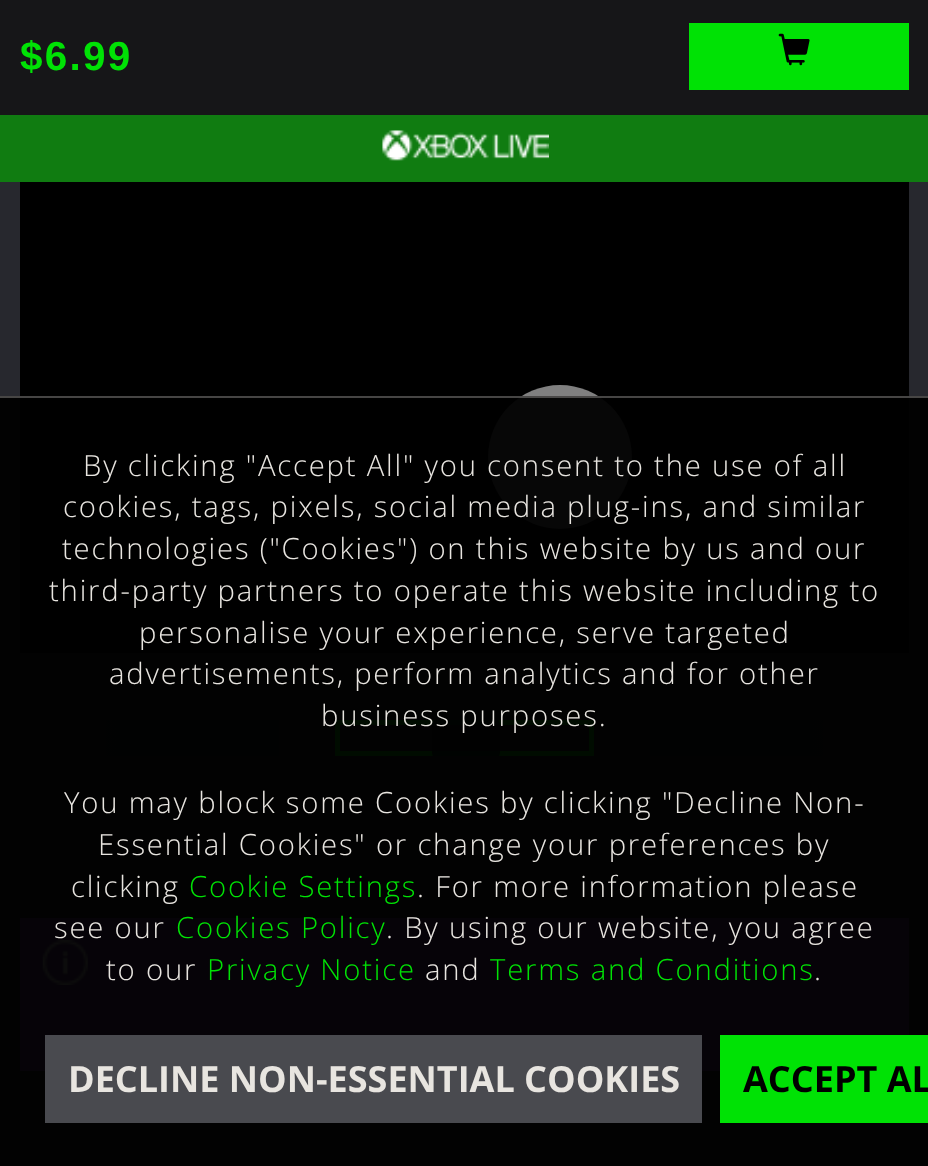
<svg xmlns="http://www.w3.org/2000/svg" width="928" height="1166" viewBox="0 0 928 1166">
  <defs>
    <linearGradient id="g1" gradientUnits="userSpaceOnUse" x1="245" y1="738" x2="20" y2="738"><stop offset="0" stop-color="#1f282c"/><stop offset="0.9" stop-color="#27282e"/></linearGradient>
    <clipPath id="clip1"><rect x="20" y="720" width="889" height="36"/></clipPath>
    <linearGradient id="g2" gradientUnits="userSpaceOnUse" x1="684" y1="738" x2="909" y2="738"><stop offset="0" stop-color="#1f282c"/><stop offset="0.9" stop-color="#27282e"/></linearGradient>
  </defs>
  <rect width="100%" height="100%" fill="#27282e"/>
  <rect x="0" y="0" width="928" height="115" fill="#161618"/>
  <text x="20" y="70" font-family="Liberation Sans" font-size="40.5" font-weight="bold" letter-spacing="2.25" fill="#00e205">$6.99</text>
  <rect x="689" y="23" width="220" height="67" fill="#00e205"/>
  <image x="778" y="33" width="32" height="33" href="img1.png"/>
  <rect x="0" y="115" width="928" height="67" fill="#107c11"/>
  <image x="382" y="130" width="167" height="31" href="img2.png"/>
  <rect x="20" y="182" width="889" height="471" fill="#000000"/>
  <circle cx="560" cy="457" r="72" fill="#808080"/>
  <rect x="106" y="720" width="139" height="36" fill="url(#g1)"/>
  <rect x="245" y="720" width="34" height="36" fill="#1f282c"/>
  <rect x="337.5" y="722.5" width="254" height="31" fill="none" stroke="#00e205" stroke-width="5"/>
  <g clip-path="url(#clip1)">
    <rect x="432" y="716" width="68" height="45" rx="9" fill="#161618" fill-opacity="0.8"/>
  </g>
  <rect x="650" y="720" width="34" height="36" fill="#1f282c"/>
  <rect x="684" y="720" width="139" height="36" fill="url(#g2)"/>
  <rect x="20" y="918" width="889" height="153" fill="#734098"/>
  <image x="42" y="940" width="46" height="45" href="img3.png"/>
  <rect x="0" y="396" width="928" height="770" fill="#000000" fill-opacity="0.95"/>
  <rect x="0" y="396" width="928" height="2" fill="#e8e5e0" fill-opacity="0.3"/>
  <text x="83" y="476" font-family="Open Sans" font-size="29.25" font-weight="300" letter-spacing="1.8" fill="#e8e5e0">By clicking "Accept All" you consent to the use of all</text>
  <text x="63" y="517" font-family="Open Sans" font-size="29.25" font-weight="300" letter-spacing="1.8" fill="#e8e5e0">cookies, tags, pixels, social media plug-ins, and similar</text>
  <text x="62" y="559" font-family="Open Sans" font-size="29.25" font-weight="300" letter-spacing="1.8" fill="#e8e5e0">technologies ("Cookies") on this website by us and our</text>
  <text x="49" y="601" font-family="Open Sans" font-size="29.25" font-weight="300" letter-spacing="1.8" fill="#e8e5e0">third-party partners to operate this website including to</text>
  <text x="139" y="643" font-family="Open Sans" font-size="29.25" font-weight="300" letter-spacing="1.8" fill="#e8e5e0">personalise your experience, serve targeted</text>
  <text x="109" y="684" font-family="Open Sans" font-size="29.25" font-weight="300" letter-spacing="1.8" fill="#e8e5e0">advertisements, perform analytics and for other</text>
  <text x="321" y="726" font-family="Open Sans" font-size="29.25" font-weight="300" letter-spacing="1.8" fill="#e8e5e0">business purposes.</text>
  <text x="64" y="813" font-family="Open Sans" font-size="29.25" font-weight="300" letter-spacing="1.8" fill="#e8e5e0">You may block some Cookies by clicking "Decline Non-</text>
  <text x="98" y="855" font-family="Open Sans" font-size="29.25" font-weight="300" letter-spacing="1.8" fill="#e8e5e0">Essential Cookies" or change your preferences by</text>
  <text x="71" y="897" font-family="Open Sans" font-size="29.25" font-weight="300" letter-spacing="1.8" fill="#e8e5e0">clicking</text>
  <text x="189" y="897" font-family="Open Sans" font-size="29.25" font-weight="300" letter-spacing="1.8" fill="#00e205">Cookie Settings</text>
  <text x="417" y="897" font-family="Open Sans" font-size="29.25" font-weight="300" letter-spacing="1.8" fill="#e8e5e0">. For more information please</text>
  <text x="54" y="938" font-family="Open Sans" font-size="29.25" font-weight="300" letter-spacing="1.8" fill="#e8e5e0">see our</text>
  <text x="176" y="938" font-family="Open Sans" font-size="29.25" font-weight="300" letter-spacing="1.8" fill="#00e205">Cookies Policy</text>
  <text x="386" y="938" font-family="Open Sans" font-size="29.25" font-weight="300" letter-spacing="1.8" fill="#e8e5e0">. By using our website, you agree</text>
  <text x="106" y="980" font-family="Open Sans" font-size="29.25" font-weight="300" letter-spacing="1.8" fill="#e8e5e0">to our</text>
  <text x="207" y="980" font-family="Open Sans" font-size="29.25" font-weight="300" letter-spacing="1.8" fill="#00e205">Privacy Notice</text>
  <text x="425" y="980" font-family="Open Sans" font-size="29.25" font-weight="300" letter-spacing="1.8" fill="#e8e5e0">and</text>
  <text x="490" y="980" font-family="Open Sans" font-size="29.25" font-weight="300" letter-spacing="1.8" fill="#00e205">Terms and Conditions</text>
  <text x="814" y="980" font-family="Open Sans" font-size="29.25" font-weight="300" letter-spacing="1.8" fill="#e8e5e0">.</text>
  <rect x="45" y="1035" width="657" height="88" fill="#494a4f"/>
  <text x="68" y="1092" font-family="Open Sans" font-size="36" font-weight="bold" fill="#e8e5e0">DECLINE NON-ESSENTIAL COOKIES</text>
  <rect x="720" y="1035" width="208" height="88" fill="#00e205"/>
  <text x="743" y="1092" font-family="Open Sans" font-size="36" font-weight="bold" fill="#000000">ACCEPT AL</text>
</svg>
